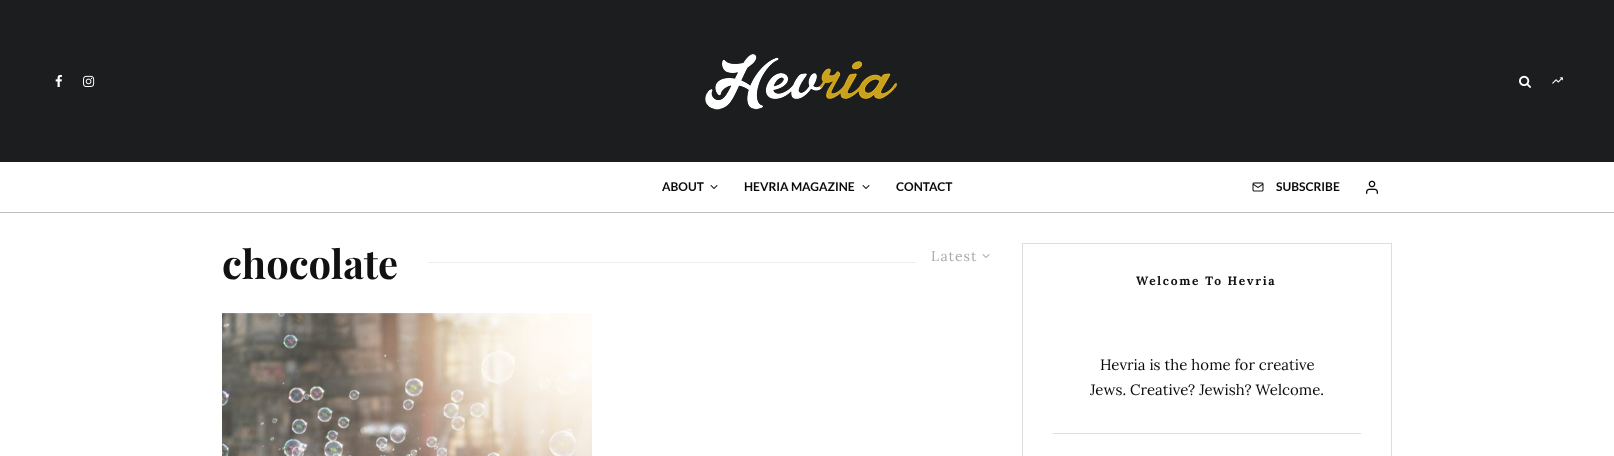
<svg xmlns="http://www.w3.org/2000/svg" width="1614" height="456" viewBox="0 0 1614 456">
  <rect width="100%" height="100%" fill="#ffffff"/>
  <rect x="0" y="0" width="1614" height="162" fill="#1c1d1e"/>
  <image x="55" y="74" width="7" height="13" href="img1.png"/>
  <image x="83" y="75" width="12" height="12" href="img2.png"/>
  <image x="705" y="54" width="192" height="56" href="img3.png"/>
  <image x="1519" y="75" width="12" height="13" href="img4.png"/>
  <image x="1552" y="77" width="11" height="7" href="img5.png"/>
  <rect x="0" y="212" width="1614" height="1" fill="#c1c1c1"/>
  <text x="662" y="191" font-family="Lato" font-size="12" font-weight="bold" fill="#0a0a0a">ABOUT</text>
  <image x="710" y="185" width="8" height="4" href="img6.png"/>
  <text x="744" y="191" font-family="Lato" font-size="12" font-weight="bold" fill="#0a0a0a">HEVRIA MAGAZINE</text>
  <image x="862" y="185" width="8" height="4" href="img6.png"/>
  <text x="896" y="191" font-family="Lato" font-size="12" font-weight="bold" fill="#0a0a0a">CONTACT</text>
  <image x="1252" y="182" width="12" height="10" href="img7.png"/>
  <text x="1276" y="191" font-family="Lato" font-size="12" font-weight="bold" fill="#0a0a0a">SUBSCRIBE</text>
  <image x="1366" y="180" width="12" height="14" href="img8.png"/>
  <text x="222" y="279" font-family="Playfair Display" font-size="40" font-weight="bold" fill="#111111">chocolate</text>
  <rect x="428" y="262" width="488" height="1" fill="#eeeeee"/>
  <text x="931" y="261" font-family="Lora" font-size="14" letter-spacing="1" fill="#aaaaaa">Latest</text>
  <image x="982" y="254" width="8" height="4" href="img9.png"/>
  <image x="222" y="313" width="370" height="143" href="img10.png"/>
  <rect x="1022.5" y="243.5" width="369" height="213" fill="none" stroke="#dddddd"/>
  <rect x="1053" y="433" width="308" height="1" fill="#dddddd"/>
  <text x="1136" y="285" font-family="Lora" font-size="12" font-weight="bold" letter-spacing="1.75" fill="#111111">Welcome To Hevria</text>
  <text x="1100" y="370" font-family="Lora" font-size="15" fill="#0a0a0a">Hevria is the home for creative</text>
  <text x="1090" y="395" font-family="Lora" font-size="15" fill="#0a0a0a">Jews. Creative? Jewish? Welcome.</text>
</svg>
